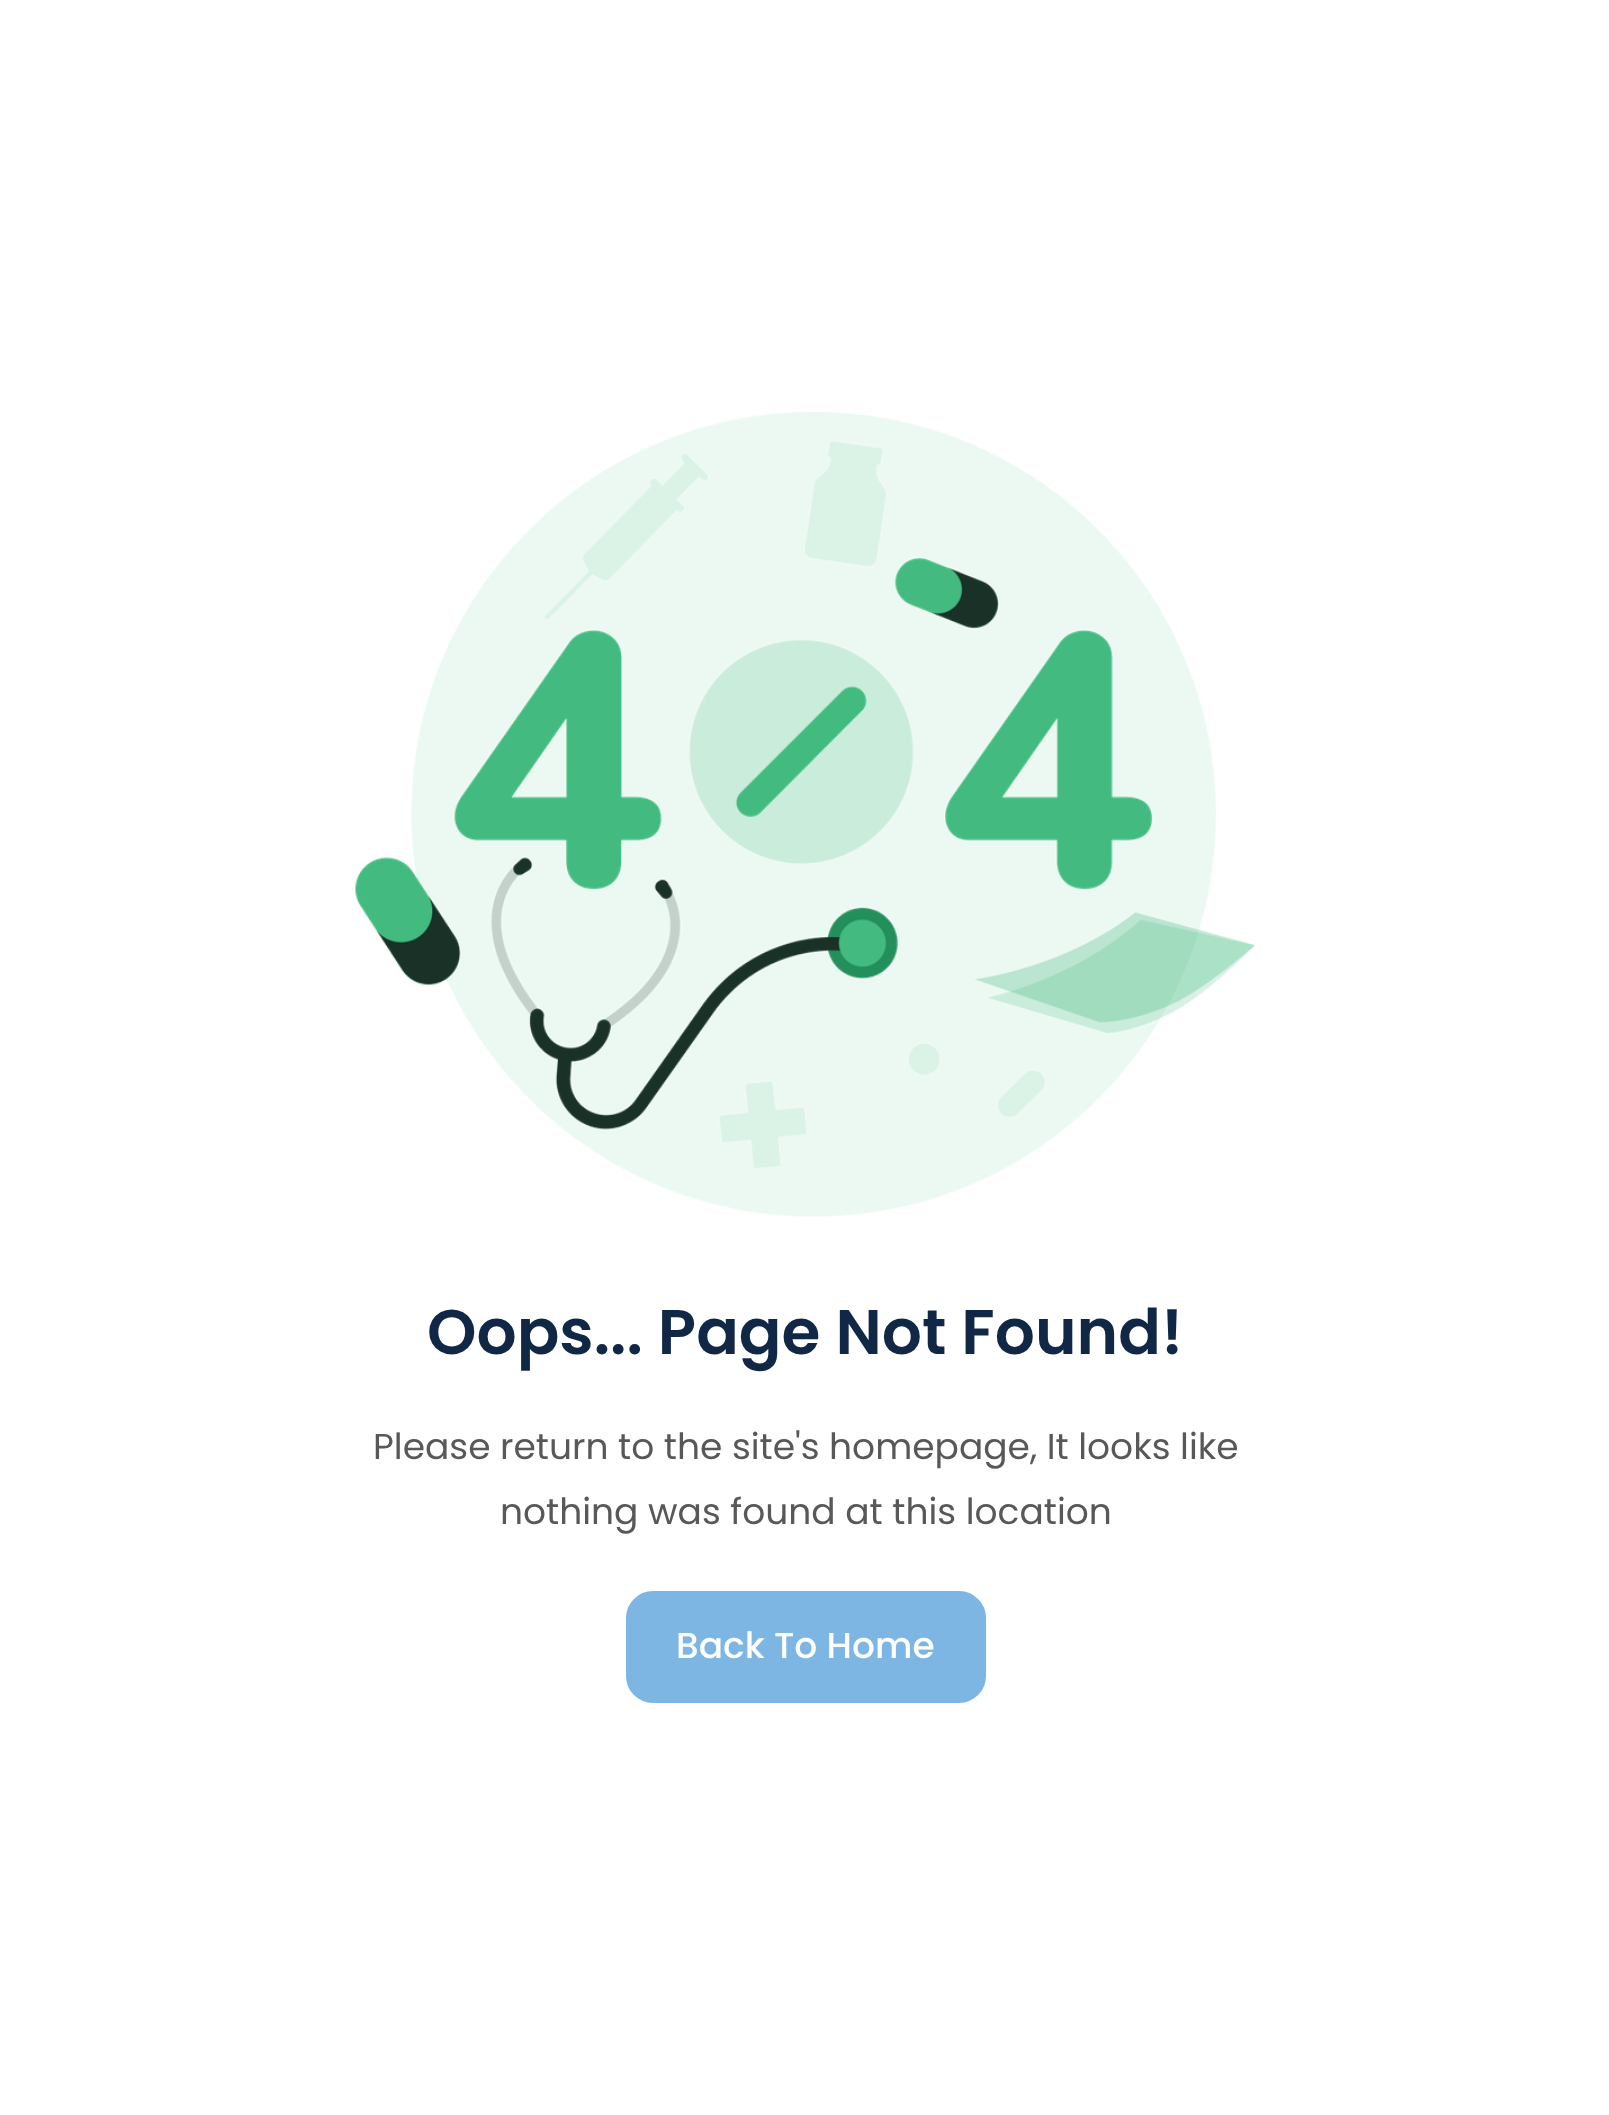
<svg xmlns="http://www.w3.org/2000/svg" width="1609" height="2115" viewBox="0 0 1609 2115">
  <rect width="100%" height="100%" fill="#ffffff"/>
  <image x="355" y="411" width="900" height="806" href="img1.png"/>
  <text x="427" y="1354" font-family="Poppins" font-size="63" font-weight="600" fill="#112746">Oops... Page Not Found!</text>
  <text x="373" y="1459" font-family="Poppins" font-size="36" fill="#585858">Please return to the site's homepage, It looks like</text>
  <text x="500" y="1524" font-family="Poppins" font-size="36" fill="#585858">nothing was found at this location</text>
  <rect x="627" y="1592" width="358" height="110" rx="26" fill="#7eb6e3" stroke="#7eb6e3" stroke-width="2"/>
  <text x="676" y="1658" font-family="Poppins" font-size="36" font-weight="500" fill="#ffffff">Back To Home</text>
</svg>
